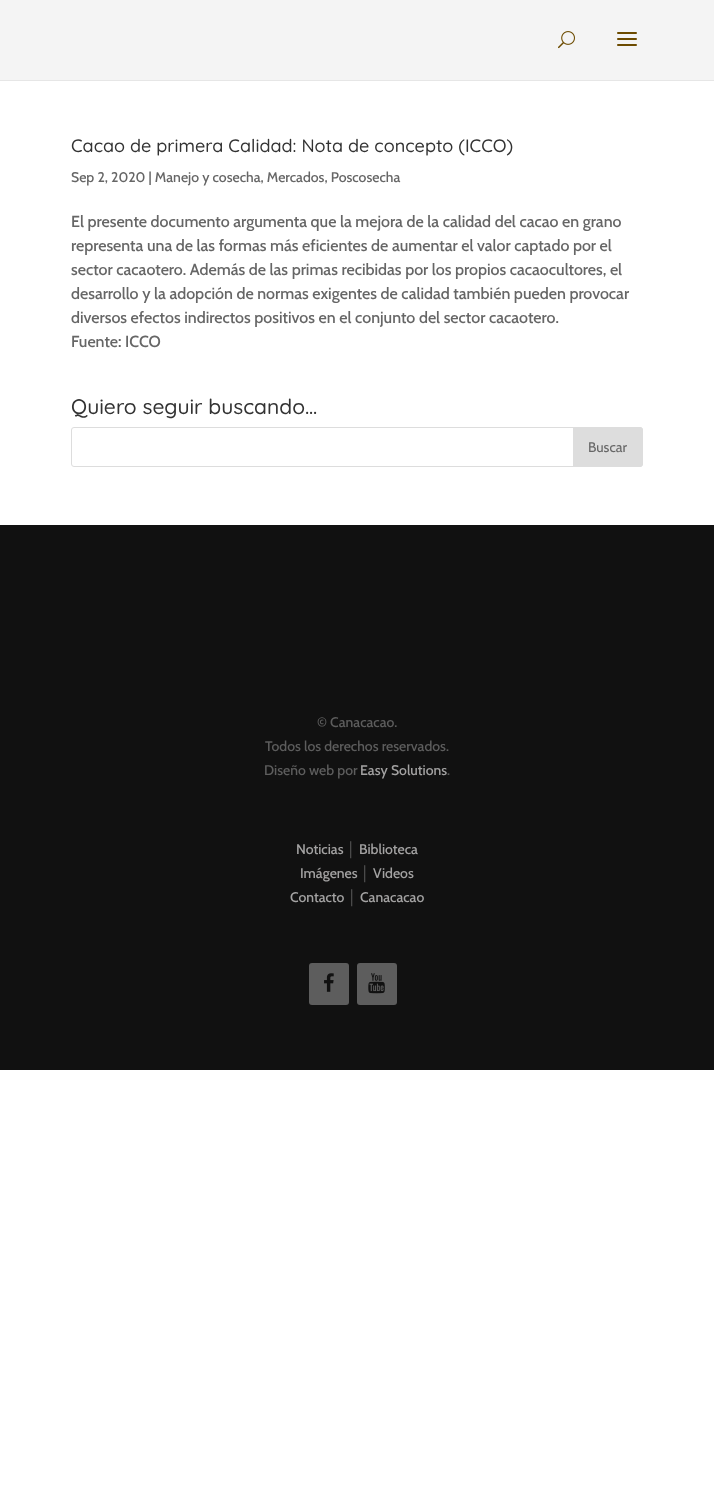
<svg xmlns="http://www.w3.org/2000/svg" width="714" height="1507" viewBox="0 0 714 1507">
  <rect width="100%" height="100%" fill="#ffffff"/>
  <rect x="0" y="80" width="714" height="1" fill="#e6e6e6"/>
  <rect x="0" y="0" width="714" height="80" fill="#f4f4f4"/>
  <image x="558" y="31" width="17" height="18" href="img1.png"/>
  <image x="617" y="32" width="20" height="14" href="img2.png"/>
  <text x="71" y="152" font-family="Quicksand" font-size="18" font-weight="500" fill="#333333">Cacao de primera Calidad: Nota de concepto (ICCO)</text>
  <text x="71" y="182" font-family="Cabin" font-size="14" font-weight="500" fill="#666666">Sep 2, 2020 | Manejo y cosecha, Mercados, Poscosecha</text>
  <text x="71" y="227" font-family="Cabin" font-size="16" font-weight="500" fill="#666666">El presente documento argumenta que la mejora de la calidad del cacao en grano</text>
  <text x="71" y="251" font-family="Cabin" font-size="16" font-weight="500" fill="#666666">representa una de las formas más eficientes de aumentar el valor captado por el</text>
  <text x="71" y="275" font-family="Cabin" font-size="16" font-weight="500" fill="#666666">sector cacaotero. Además de las primas recibidas por los propios cacaocultores, el</text>
  <text x="71" y="299" font-family="Cabin" font-size="16" font-weight="500" fill="#666666">desarrollo y la adopción de normas exigentes de calidad también pueden provocar</text>
  <text x="71" y="323" font-family="Cabin" font-size="16" font-weight="500" fill="#666666">diversos efectos indirectos positivos en el conjunto del sector cacaotero.</text>
  <text x="71" y="347" font-family="Cabin" font-size="16" font-weight="500" fill="#666666">Fuente: ICCO</text>
  <text x="71" y="414" font-family="Quicksand" font-size="21" font-weight="500" fill="#333333">Quiero seguir buscando…</text>
  <rect x="71.5" y="427.5" width="571" height="39" rx="2.5" fill="none" stroke="#dddddd"/>
  <path d="M573.5 427.5H640C641.5 427.5 642.5 428.5 642.5 430V464C642.5 465.5 641.5 466.5 640 466.5H573.5Z" fill="#dddddd" stroke="#dddddd"/>
  <text x="588" y="452" font-family="Cabin" font-size="14" fill="#666666">Buscar</text>
  <rect x="0" y="525" width="714" height="545" fill="#111111"/>
  <text x="317" y="727" font-family="Cabin" font-size="14" font-weight="500" fill="#5d5d5d">© Canacacao.</text>
  <text x="265" y="751" font-family="Cabin" font-size="14" font-weight="500" fill="#5d5d5d">Todos los derechos reservados.</text>
  <text x="264" y="775" font-family="Cabin" font-size="14" font-weight="500" fill="#5d5d5d">Diseño web por</text>
  <text x="360" y="775" font-family="Cabin" font-size="14" font-weight="500" fill="#a3a2a2">Easy Solutions</text>
  <text x="447" y="775" font-family="Cabin" font-size="14" font-weight="500" fill="#5d5d5d">.</text>
  <text x="296" y="854" font-family="Cabin" font-size="14" font-weight="500" fill="#a3a2a2">Noticias</text>
  <text x="347" y="854" font-family="Liberation Sans" font-size="14" fill="#5d5d5d">│</text>
  <text x="359" y="854" font-family="Cabin" font-size="14" font-weight="500" fill="#a3a2a2">Biblioteca</text>
  <text x="300" y="878" font-family="Cabin" font-size="14" font-weight="500" fill="#a3a2a2">Imágenes</text>
  <text x="361" y="878" font-family="Liberation Sans" font-size="14" fill="#5d5d5d">│</text>
  <text x="373" y="878" font-family="Cabin" font-size="14" font-weight="500" fill="#a3a2a2">Videos</text>
  <text x="290" y="902" font-family="Cabin" font-size="14" font-weight="500" fill="#a3a2a2">Contacto</text>
  <text x="348" y="902" font-family="Liberation Sans" font-size="14" fill="#5d5d5d">│</text>
  <text x="360" y="902" font-family="Cabin" font-size="14" font-weight="500" fill="#a3a2a2">Canacacao</text>
  <rect x="309" y="963" width="40" height="42" rx="3" fill="#5d5d5d"/>
  <image x="324" y="973" width="10" height="19" href="img3.png"/>
  <rect x="357" y="963" width="40" height="42" rx="3" fill="#5d5d5d"/>
  <image x="368" y="973" width="17" height="21" href="img4.png"/>
</svg>
